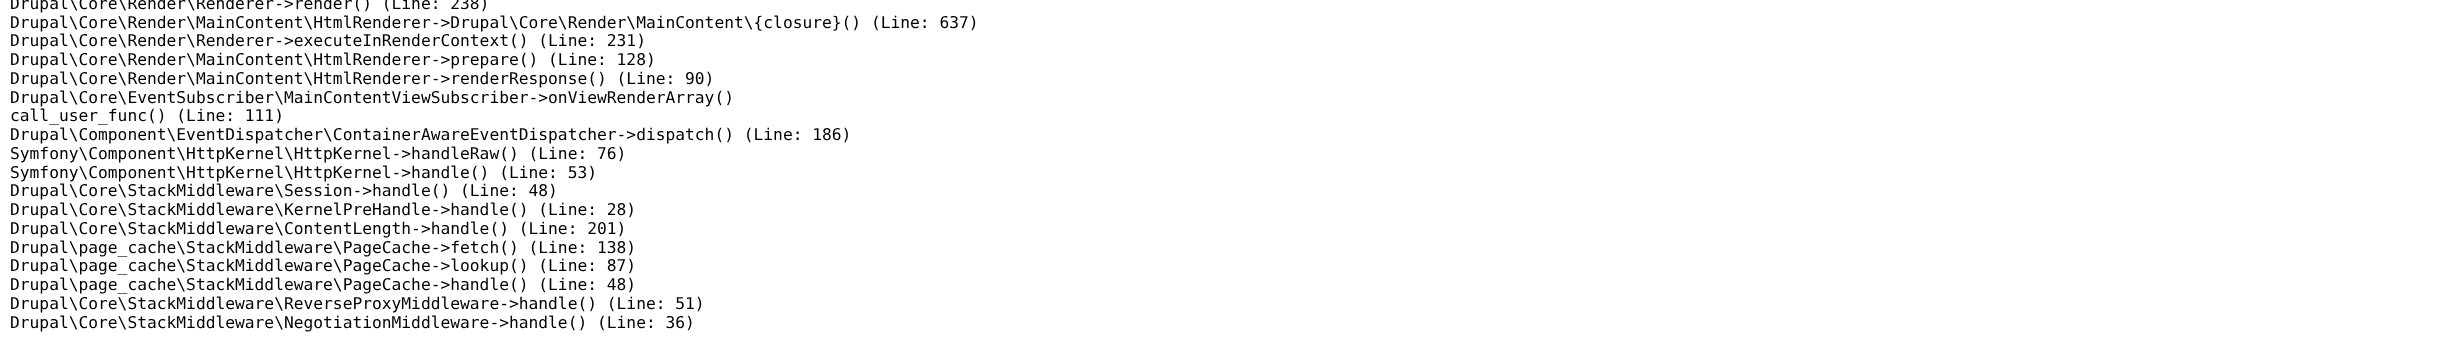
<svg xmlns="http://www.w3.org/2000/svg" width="2449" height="340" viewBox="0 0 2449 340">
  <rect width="100%" height="100%" fill="#ffffff"/>
  <text x="10" y="9" font-family="DejaVu Sans Mono" font-size="16.25" fill="#000000">Drupal\Core\Render\Renderer-&gt;render() (Line: 238)</text>
  <text x="10" y="28" font-family="DejaVu Sans Mono" font-size="16.25" fill="#000000">Drupal\Core\Render\MainContent\HtmlRenderer-&gt;Drupal\Core\Render\MainContent\{closure}() (Line: 637)</text>
  <text x="10" y="46" font-family="DejaVu Sans Mono" font-size="16.25" fill="#000000">Drupal\Core\Render\Renderer-&gt;executeInRenderContext() (Line: 231)</text>
  <text x="10" y="65" font-family="DejaVu Sans Mono" font-size="16.25" fill="#000000">Drupal\Core\Render\MainContent\HtmlRenderer-&gt;prepare() (Line: 128)</text>
  <text x="10" y="84" font-family="DejaVu Sans Mono" font-size="16.25" fill="#000000">Drupal\Core\Render\MainContent\HtmlRenderer-&gt;renderResponse() (Line: 90)</text>
  <text x="10" y="103" font-family="DejaVu Sans Mono" font-size="16.25" fill="#000000">Drupal\Core\EventSubscriber\MainContentViewSubscriber-&gt;onViewRenderArray()</text>
  <text x="10" y="121" font-family="DejaVu Sans Mono" font-size="16.25" fill="#000000">call_user_func() (Line: 111)</text>
  <text x="10" y="140" font-family="DejaVu Sans Mono" font-size="16.25" fill="#000000">Drupal\Component\EventDispatcher\ContainerAwareEventDispatcher-&gt;dispatch() (Line: 186)</text>
  <text x="10" y="159" font-family="DejaVu Sans Mono" font-size="16.25" fill="#000000">Symfony\Component\HttpKernel\HttpKernel-&gt;handleRaw() (Line: 76)</text>
  <text x="10" y="178" font-family="DejaVu Sans Mono" font-size="16.25" fill="#000000">Symfony\Component\HttpKernel\HttpKernel-&gt;handle() (Line: 53)</text>
  <text x="10" y="196" font-family="DejaVu Sans Mono" font-size="16.25" fill="#000000">Drupal\Core\StackMiddleware\Session-&gt;handle() (Line: 48)</text>
  <text x="10" y="215" font-family="DejaVu Sans Mono" font-size="16.25" fill="#000000">Drupal\Core\StackMiddleware\KernelPreHandle-&gt;handle() (Line: 28)</text>
  <text x="10" y="234" font-family="DejaVu Sans Mono" font-size="16.25" fill="#000000">Drupal\Core\StackMiddleware\ContentLength-&gt;handle() (Line: 201)</text>
  <text x="10" y="253" font-family="DejaVu Sans Mono" font-size="16.25" fill="#000000">Drupal\page_cache\StackMiddleware\PageCache-&gt;fetch() (Line: 138)</text>
  <text x="10" y="271" font-family="DejaVu Sans Mono" font-size="16.25" fill="#000000">Drupal\page_cache\StackMiddleware\PageCache-&gt;lookup() (Line: 87)</text>
  <text x="10" y="290" font-family="DejaVu Sans Mono" font-size="16.25" fill="#000000">Drupal\page_cache\StackMiddleware\PageCache-&gt;handle() (Line: 48)</text>
  <text x="10" y="309" font-family="DejaVu Sans Mono" font-size="16.25" fill="#000000">Drupal\Core\StackMiddleware\ReverseProxyMiddleware-&gt;handle() (Line: 51)</text>
  <text x="10" y="328" font-family="DejaVu Sans Mono" font-size="16.25" fill="#000000">Drupal\Core\StackMiddleware\NegotiationMiddleware-&gt;handle() (Line: 36)</text>
</svg>
